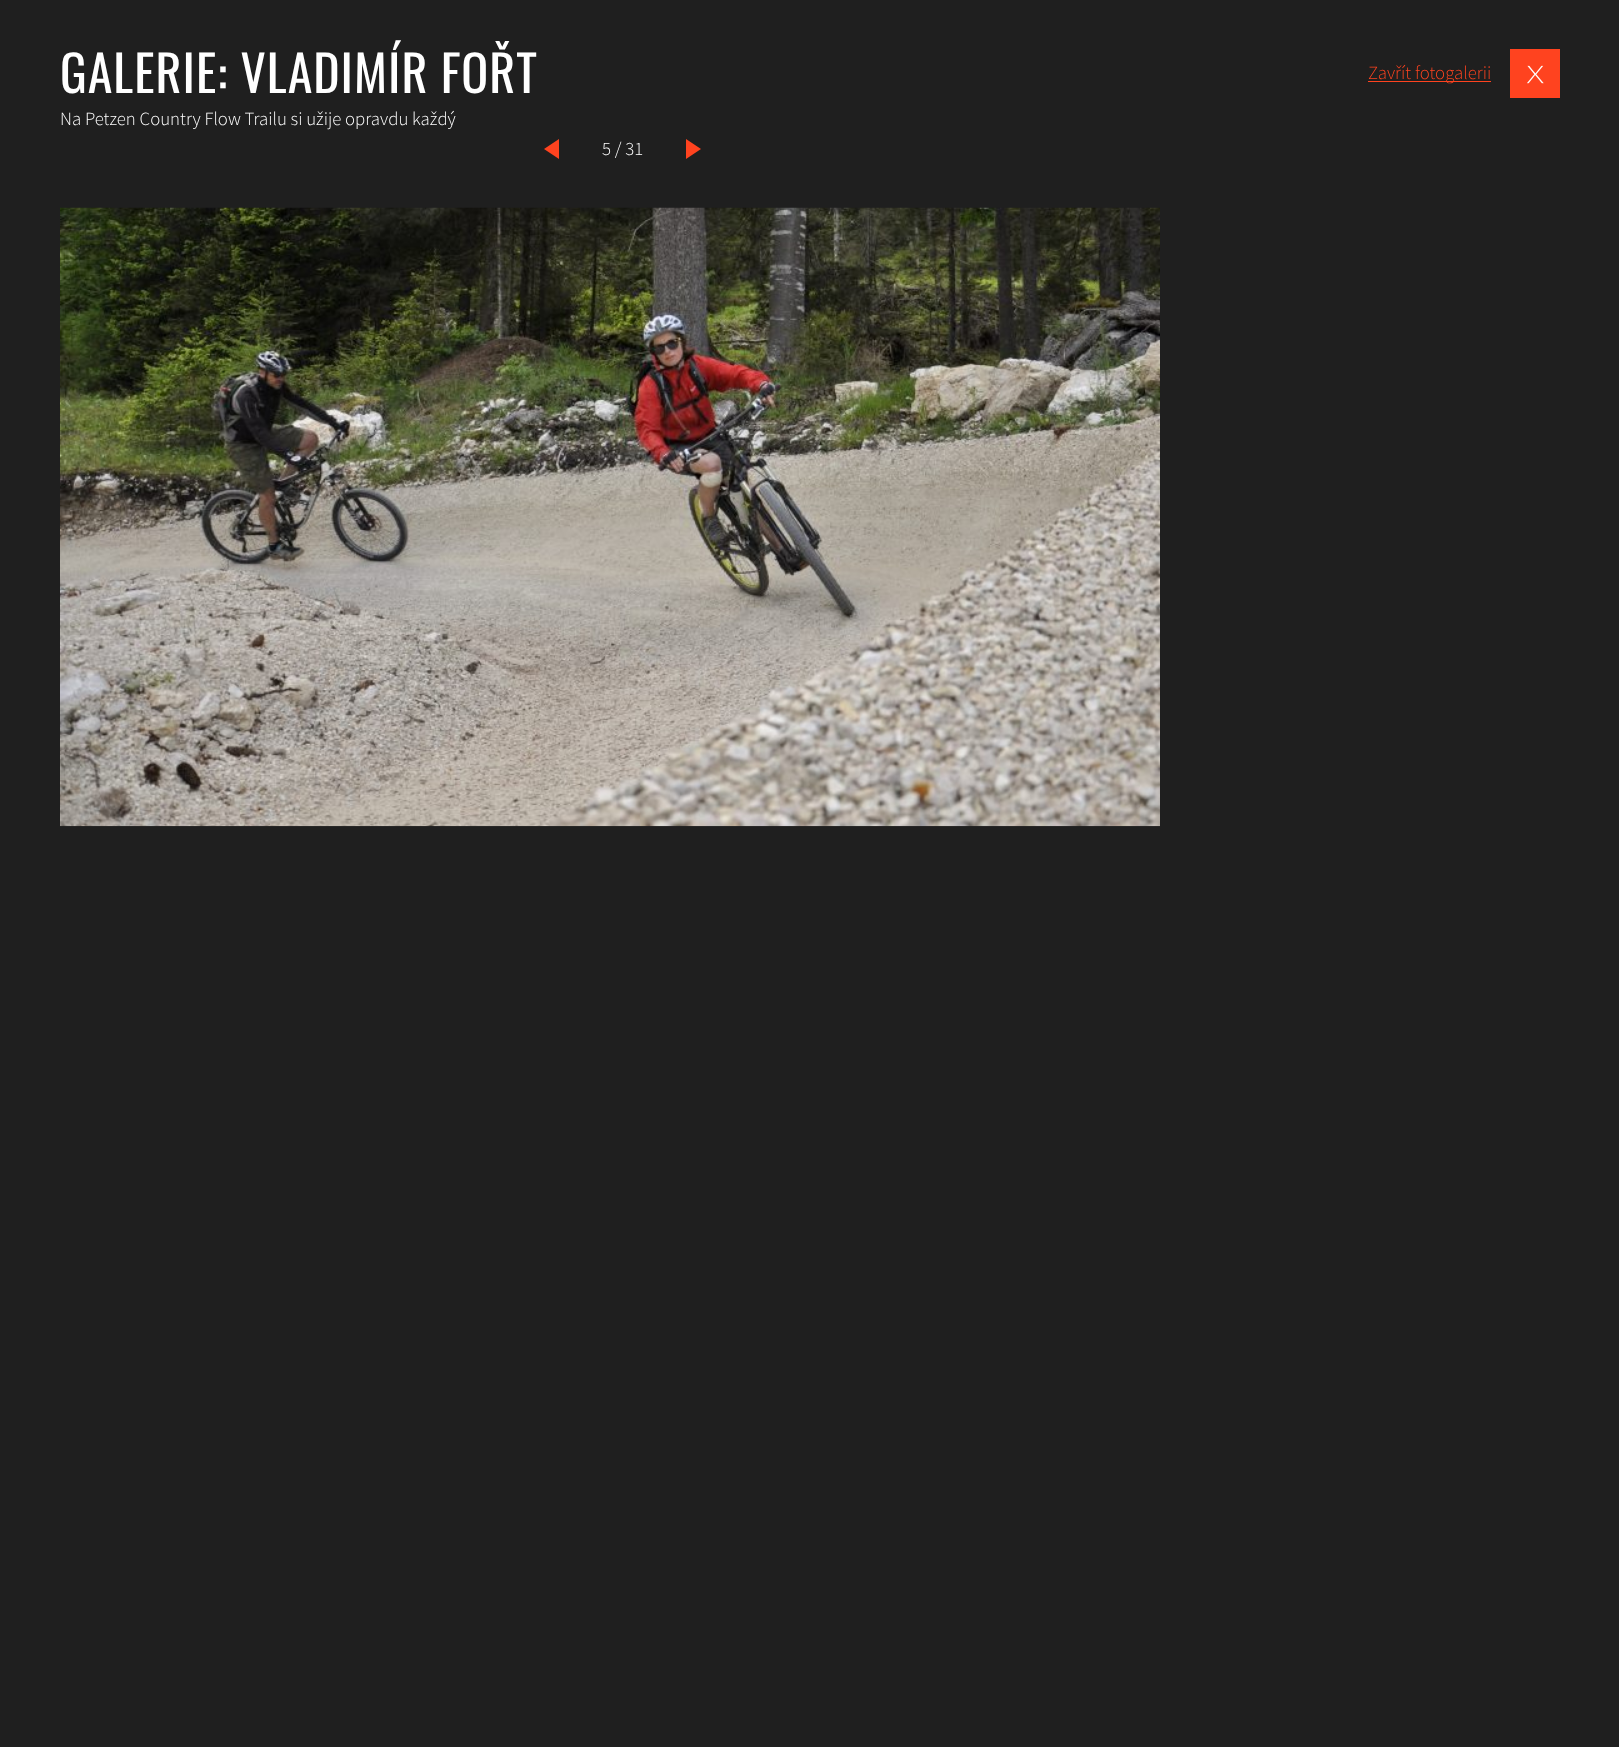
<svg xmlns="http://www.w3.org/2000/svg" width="1619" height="1747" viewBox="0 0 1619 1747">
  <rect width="100%" height="100%" fill="#1f1f1f"/>
  <text x="60" y="93" font-family="Oswald" font-size="50" letter-spacing="1" fill="#ffffff">GALERIE: VLADIMÍR FOŘT</text>
  <text x="60" y="125" font-family="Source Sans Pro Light" font-size="18.75" font-weight="300" fill="#ffffff">Na Petzen Country Flow Trailu si užije opravdu každý</text>
  <path d="M559 139V159L544 149Z" fill="#ff431f"/>
  <text x="602" y="155" font-family="Source Sans Pro Light" font-size="18.75" font-weight="300" fill="#ffffff">5 / 31</text>
  <path d="M686 159V139L701 149Z" fill="#ff431f"/>
  <rect x="1368" y="81" width="123" height="1" fill="#ff431f"/>
  <text x="1368" y="79" font-family="Source Sans Pro Light" font-size="18.75" font-weight="300" fill="#ff431f">Zavřít fotogalerii</text>
  <rect x="1510" y="49" width="50" height="49" fill="#ff431f"/>
  <image x="1527" y="65" width="17" height="19" href="img1.png"/>
  <image x="60" y="207" width="1100" height="620" href="img2.png"/>
</svg>
